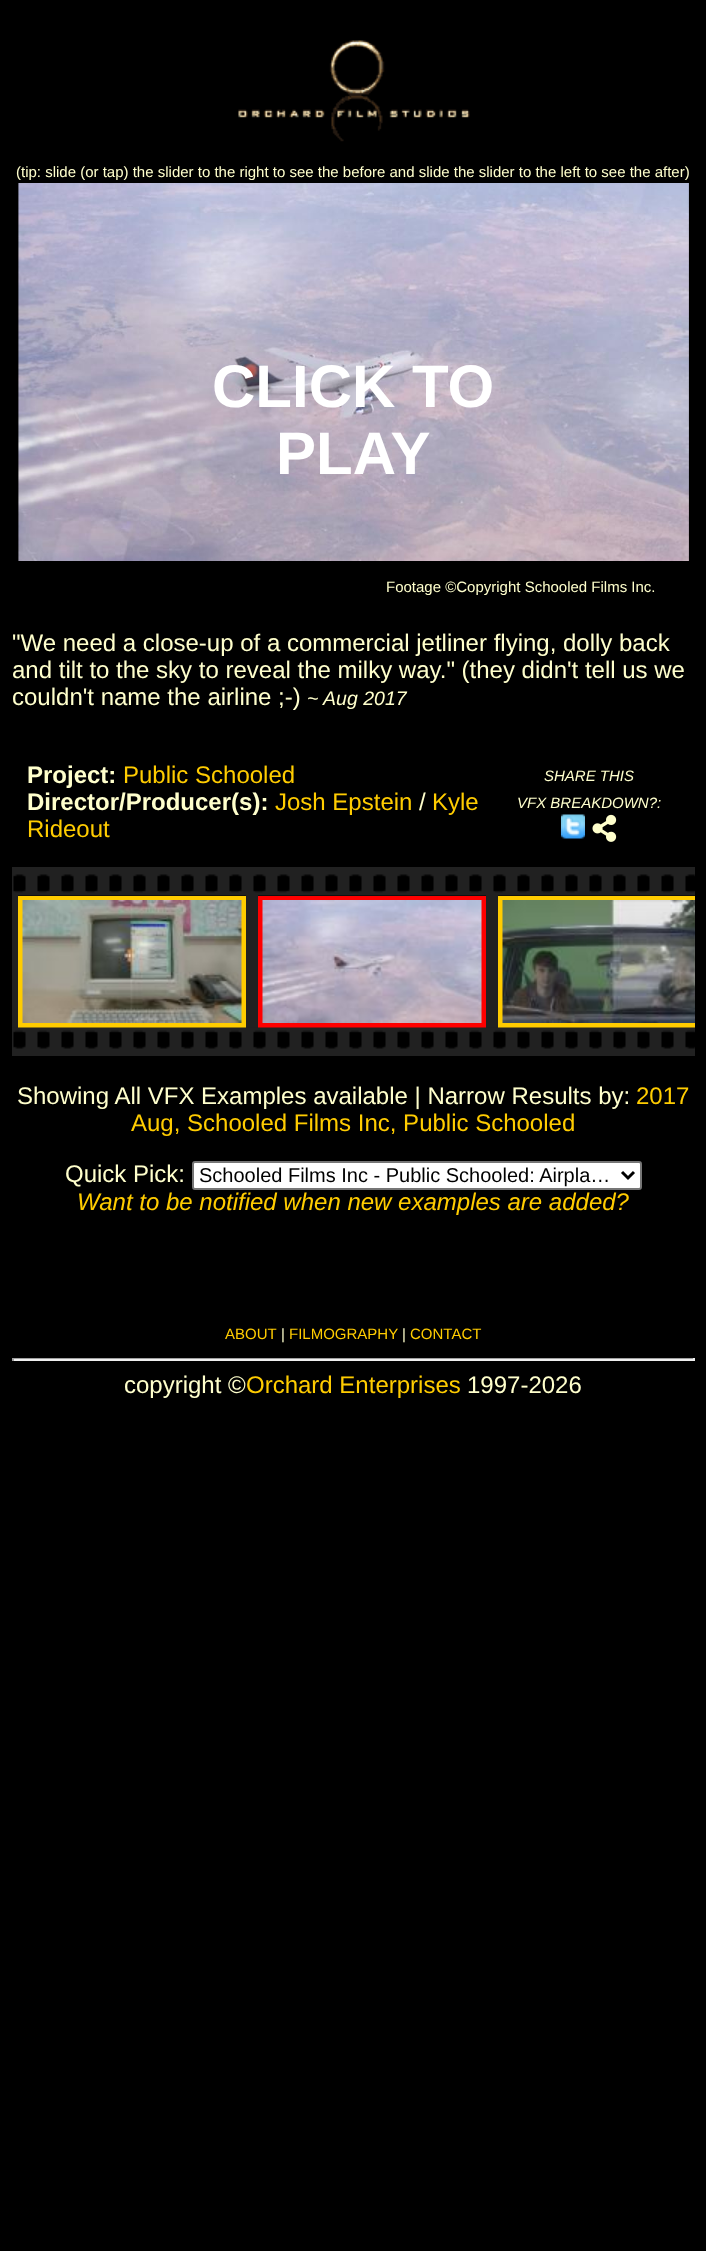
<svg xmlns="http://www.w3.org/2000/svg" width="706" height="2251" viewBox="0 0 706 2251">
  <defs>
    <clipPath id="clip1"><rect x="12" y="867" width="683" height="192"/></clipPath>
  </defs>
  <rect width="100%" height="100%" fill="#000000"/>
  <image x="238" y="40" width="232" height="102" href="img1.png"/>
  <text x="16" y="177" font-family="Liberation Sans" font-size="15" fill="#ffffcc">(tip: slide (or tap) the slider to the right to see the before and slide the slider to the left to see the after)</text>
  <image x="18" y="183" width="671" height="378" href="img2.png"/>
  <text x="212" y="407" font-family="Liberation Sans" font-size="60" font-weight="bold" fill="#ffffff">CLICK TO</text>
  <text x="276" y="474" font-family="Liberation Sans" font-size="60" font-weight="bold" fill="#ffffff">PLAY</text>
  <text x="386" y="592" font-family="Liberation Sans" font-size="15" fill="#ffffcc">Footage ©Copyright Schooled Films Inc.</text>
  <text x="12" y="651" font-family="Liberation Sans" font-size="24" fill="#ffffcc">"We need a close-up of a commercial jetliner flying, dolly back</text>
  <text x="12" y="678" font-family="Liberation Sans" font-size="24" fill="#ffffcc">and tilt to the sky to reveal the milky way." (they didn't tell us we</text>
  <text x="12" y="705" font-family="Liberation Sans" font-size="24" fill="#ffffcc">couldn't name the airline ;-)</text>
  <text x="307" y="705" font-family="Liberation Sans" font-size="19.5" font-style="italic" fill="#ffffcc">~ Aug 2017</text>
  <text x="27" y="783" font-family="Liberation Sans" font-size="24" font-weight="bold" fill="#ffffcc">Project:</text>
  <text x="123" y="783" font-family="Liberation Sans" font-size="24" fill="#ffcc00">Public Schooled</text>
  <text x="27" y="810" font-family="Liberation Sans" font-size="24" font-weight="bold" fill="#ffffcc">Director/Producer(s):</text>
  <text x="275" y="810" font-family="Liberation Sans" font-size="24" fill="#ffcc00">Josh Epstein</text>
  <text x="419" y="810" font-family="Liberation Sans" font-size="24" fill="#ffffcc">/</text>
  <text x="432" y="810" font-family="Liberation Sans" font-size="24" fill="#ffcc00">Kyle</text>
  <text x="27" y="837" font-family="Liberation Sans" font-size="24" fill="#ffcc00">Rideout</text>
  <text x="544" y="781" font-family="Liberation Sans" font-size="15" font-style="italic" fill="#ffffcc">SHARE THIS</text>
  <text x="517" y="808" font-family="Liberation Sans" font-size="15" font-style="italic" fill="#ffffcc">VFX BREAKDOWN?:</text>
  <image x="561" y="814" width="24" height="25" href="img3.png"/>
  <image x="592" y="814" width="25" height="28" href="img4.png"/>
  <image x="12" y="867" width="24" height="29" href="img5.png"/>
  <image x="36" y="867" width="24" height="29" href="img5.png"/>
  <image x="60" y="867" width="24" height="29" href="img5.png"/>
  <image x="84" y="867" width="24" height="29" href="img5.png"/>
  <image x="108" y="867" width="24" height="29" href="img5.png"/>
  <image x="132" y="867" width="24" height="29" href="img5.png"/>
  <image x="156" y="867" width="24" height="29" href="img5.png"/>
  <image x="180" y="867" width="24" height="29" href="img5.png"/>
  <image x="204" y="867" width="24" height="29" href="img5.png"/>
  <image x="228" y="867" width="24" height="29" href="img5.png"/>
  <rect x="12" y="895" width="6" height="133" fill="#212121"/>
  <rect x="20.5" y="898.5" width="223" height="127" fill="none" stroke="#ffcc00" stroke-width="5"/>
  <image x="22" y="900" width="220" height="123" href="img6.png"/>
  <rect x="246" y="895" width="6" height="133" fill="#212121"/>
  <image x="12" y="1027" width="24" height="29" href="img7.png"/>
  <image x="36" y="1027" width="24" height="29" href="img8.png"/>
  <image x="60" y="1027" width="24" height="29" href="img8.png"/>
  <image x="84" y="1027" width="24" height="29" href="img8.png"/>
  <image x="108" y="1027" width="24" height="29" href="img8.png"/>
  <image x="132" y="1027" width="24" height="29" href="img8.png"/>
  <image x="156" y="1027" width="24" height="29" href="img8.png"/>
  <image x="180" y="1027" width="24" height="29" href="img8.png"/>
  <image x="204" y="1027" width="24" height="29" href="img8.png"/>
  <image x="228" y="1027" width="24" height="29" href="img9.png"/>
  <image x="252" y="867" width="24" height="29" href="img5.png"/>
  <image x="276" y="867" width="24" height="29" href="img5.png"/>
  <image x="300" y="867" width="24" height="29" href="img5.png"/>
  <image x="324" y="867" width="24" height="29" href="img5.png"/>
  <image x="348" y="867" width="24" height="29" href="img5.png"/>
  <image x="372" y="867" width="24" height="29" href="img5.png"/>
  <image x="396" y="867" width="24" height="29" href="img5.png"/>
  <image x="420" y="867" width="24" height="29" href="img5.png"/>
  <image x="444" y="867" width="24" height="29" href="img5.png"/>
  <image x="468" y="867" width="24" height="29" href="img5.png"/>
  <rect x="252" y="895" width="6" height="133" fill="#212121"/>
  <rect x="260.5" y="898.5" width="223" height="127" fill="none" stroke="#ff0000" stroke-width="5"/>
  <image x="262" y="900" width="220" height="123" href="img10.png"/>
  <rect x="486" y="895" width="6" height="133" fill="#212121"/>
  <image x="252" y="1027" width="24" height="29" href="img11.png"/>
  <image x="276" y="1027" width="24" height="29" href="img12.png"/>
  <image x="300" y="1027" width="24" height="29" href="img12.png"/>
  <image x="324" y="1027" width="24" height="29" href="img12.png"/>
  <image x="348" y="1027" width="24" height="29" href="img12.png"/>
  <image x="372" y="1027" width="24" height="29" href="img12.png"/>
  <image x="396" y="1027" width="24" height="29" href="img12.png"/>
  <image x="420" y="1027" width="24" height="29" href="img12.png"/>
  <image x="444" y="1027" width="24" height="29" href="img12.png"/>
  <image x="468" y="1027" width="24" height="29" href="img13.png"/>
  <image x="492" y="867" width="24" height="29" href="img5.png"/>
  <image x="516" y="867" width="24" height="29" href="img5.png"/>
  <image x="540" y="867" width="24" height="29" href="img5.png"/>
  <image x="564" y="867" width="24" height="29" href="img5.png"/>
  <image x="588" y="867" width="24" height="29" href="img5.png"/>
  <image x="612" y="867" width="24" height="29" href="img5.png"/>
  <image x="636" y="867" width="24" height="29" href="img5.png"/>
  <image x="660" y="867" width="24" height="29" href="img5.png"/>
  <image x="684" y="867" width="11" height="29" href="img14.png"/>
  <rect x="492" y="895" width="6" height="133" fill="#212121"/>
  <g clip-path="url(#clip1)">
    <rect x="500.5" y="898.5" width="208" height="127" fill="none" stroke="#ffcc00" stroke-width="5"/>
  </g>
  <image x="502" y="900" width="193" height="123" href="img15.png"/>
  <image x="492" y="1027" width="24" height="29" href="img7.png"/>
  <image x="516" y="1027" width="24" height="29" href="img8.png"/>
  <image x="540" y="1027" width="24" height="29" href="img8.png"/>
  <image x="564" y="1027" width="24" height="29" href="img8.png"/>
  <image x="588" y="1027" width="24" height="29" href="img8.png"/>
  <image x="612" y="1027" width="24" height="29" href="img8.png"/>
  <image x="636" y="1027" width="24" height="29" href="img8.png"/>
  <image x="660" y="1027" width="24" height="29" href="img8.png"/>
  <image x="684" y="1027" width="11" height="29" href="img16.png"/>
  <text x="17" y="1104" font-family="Liberation Sans" font-size="24" fill="#ffffcc">Showing All VFX Examples available | Narrow Results by:</text>
  <text x="636" y="1104" font-family="Liberation Sans" font-size="24" fill="#ffcc00">2017</text>
  <text x="131" y="1131" font-family="Liberation Sans" font-size="24" fill="#ffcc00">Aug, Schooled Films Inc, Public Schooled</text>
  <text x="65" y="1182" font-family="Liberation Sans" font-size="24" fill="#ffffcc">Quick Pick:</text>
  <rect x="193" y="1162" width="448" height="27" rx="2" fill="#ffffff" stroke="#767676" stroke-width="2"/>
  <path d="M622 1172L628 1178L634 1172" fill="none" stroke="#000000" stroke-width="3"/>
  <text x="199" y="1182" font-family="Liberation Sans" font-size="20" fill="#000000">Schooled Films Inc - Public Schooled: Airpla…</text>
  <text x="77" y="1210" font-family="Liberation Sans" font-size="24" font-style="italic" fill="#ffcc00">Want to be notified when new examples are added?</text>
  <text x="225" y="1339" font-family="Liberation Sans" font-size="15" fill="#ffcc00">ABOUT</text>
  <text x="281" y="1339" font-family="Liberation Sans" font-size="15" fill="#ffffcc">|</text>
  <text x="289" y="1339" font-family="Liberation Sans" font-size="15" fill="#ffcc00">FILMOGRAPHY</text>
  <text x="402" y="1339" font-family="Liberation Sans" font-size="15" fill="#ffffcc">|</text>
  <text x="410" y="1339" font-family="Liberation Sans" font-size="15" fill="#ffcc00">CONTACT</text>
  <rect x="12" y="1358" width="683" height="1" fill="#9f9f9f"/>
  <rect x="693" y="1358" width="2" height="3" fill="#eeeeee"/>
  <rect x="12" y="1359" width="683" height="2" fill="#eeeeee"/>
  <rect x="12" y="1358" width="2" height="3" fill="#9f9f9f"/>
  <text x="124" y="1393" font-family="Liberation Sans" font-size="24" fill="#ffffcc">copyright ©</text>
  <text x="246" y="1393" font-family="Liberation Sans" font-size="24" fill="#ffcc00">Orchard Enterprises</text>
  <text x="467" y="1393" font-family="Liberation Sans" font-size="24" fill="#ffffcc">1997-2026</text>
</svg>
